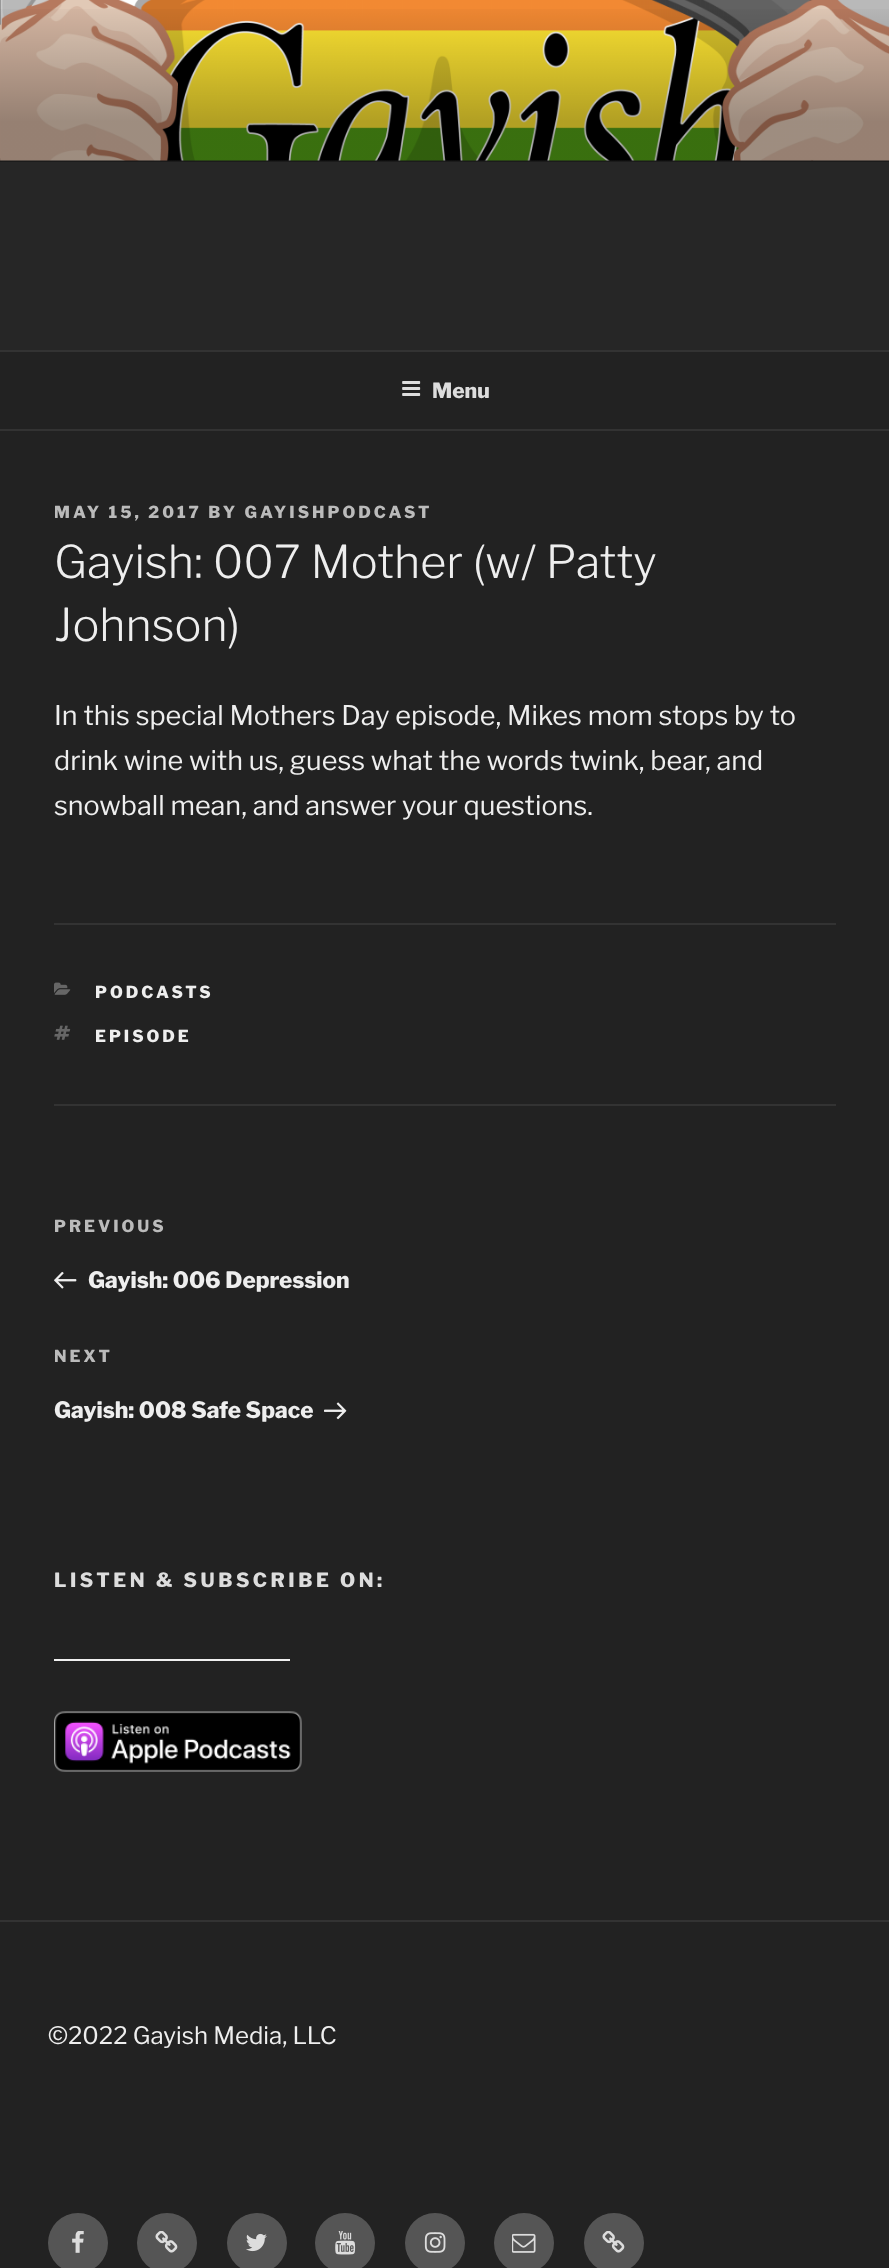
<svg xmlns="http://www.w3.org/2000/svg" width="889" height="2268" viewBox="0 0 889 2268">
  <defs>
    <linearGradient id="g1" gradientUnits="userSpaceOnUse" x1="445" y1="0" x2="445" y2="162"><stop offset="0" stop-color="#000000" stop-opacity="0"/><stop offset="0.75" stop-color="#000000" stop-opacity="0.3"/><stop offset="1" stop-color="#000000" stop-opacity="0.3"/></linearGradient>
  </defs>
  <rect width="100%" height="100%" fill="#222222"/>
  <rect x="0" y="0" width="889" height="350" fill="#262626"/>
  <image x="0" y="0" width="889" height="161" href="img1.png"/>
  <rect x="0" y="9" width="889" height="153" fill="url(#g1)"/>
  <rect x="0" y="350" width="889" height="2" fill="#333333"/>
  <rect x="0" y="429" width="889" height="2" fill="#333333"/>
  <image x="402" y="381" width="19" height="15" href="img2.png"/>
  <text x="432" y="398" font-family="Libre Franklin" font-size="21" font-weight="100" fill="#dddddd">Menu</text>
  <text x="54" y="518" font-family="Libre Franklin" font-size="16.5" font-weight="100" letter-spacing="3" fill="#bbbbbb">MAY 15, 2017 BY GAYISHPODCAST</text>
  <text x="54" y="578" font-family="'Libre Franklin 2'" font-size="45" font-weight="100" fill="#eeeeee">Gayish: 007 Mother (w/ Patty</text>
  <text x="54" y="641" font-family="'Libre Franklin 2'" font-size="45" font-weight="100" fill="#eeeeee">Johnson)</text>
  <text x="54" y="725" font-family="'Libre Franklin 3'" font-size="27" font-weight="100" fill="#eeeeee">In this special Mothers Day episode, Mikes mom stops by to</text>
  <text x="54" y="770" font-family="'Libre Franklin 3'" font-size="27" font-weight="100" fill="#eeeeee">drink wine with us, guess what the words twink, bear, and</text>
  <text x="54" y="815" font-family="'Libre Franklin 3'" font-size="27" font-weight="100" fill="#eeeeee">snowball mean, and answer your questions.</text>
  <rect x="54" y="923" width="782" height="2" fill="#333333"/>
  <rect x="54" y="1104" width="782" height="2" fill="#333333"/>
  <image x="54" y="982" width="17" height="13" href="img3.png"/>
  <text x="95" y="998" font-family="Libre Franklin" font-size="16.5" font-weight="100" letter-spacing="3" fill="#eeeeee">PODCASTS</text>
  <image x="54" y="1025" width="17" height="15" href="img4.png"/>
  <text x="95" y="1042" font-family="Libre Franklin" font-size="16.5" font-weight="100" letter-spacing="3" fill="#eeeeee">EPISODE</text>
  <text x="54" y="1232" font-family="Libre Franklin" font-size="16.5" font-weight="100" letter-spacing="3" fill="#bbbbbb">PREVIOUS</text>
  <image x="54" y="1271" width="23" height="18" href="img5.png"/>
  <text x="88" y="1288" font-family="Libre Franklin" font-size="22.5" font-weight="100" fill="#eeeeee">Gayish: 006 Depression</text>
  <text x="54" y="1362" font-family="Libre Franklin" font-size="16.5" font-weight="100" letter-spacing="3" fill="#bbbbbb">NEXT</text>
  <text x="54" y="1418" font-family="Libre Franklin" font-size="22.5" font-weight="100" fill="#eeeeee">Gayish: 008 Safe Space</text>
  <image x="324" y="1402" width="23" height="18" href="img6.png"/>
  <text x="54" y="1587" font-family="Libre Franklin" font-size="19.5" font-weight="100" letter-spacing="3.55" fill="#dddddd">LISTEN &amp; SUBSCRIBE ON:</text>
  <rect x="54" y="1659" width="236" height="2" fill="#f0f0f0"/>
  <image x="54" y="1711" width="248" height="61" href="img7.png"/>
  <rect x="0" y="1920" width="889" height="2" fill="#333333"/>
  <text x="48" y="2044" font-family="'Libre Franklin 3'" font-size="24" font-weight="100" fill="#eeeeee">©2022 Gayish Media, LLC</text>
  <circle cx="78" cy="2243" r="30" fill="#555555"/>
  <image x="72" y="2231" width="12" height="22" href="img8.png"/>
  <circle cx="167" cy="2243" r="30" fill="#555555"/>
  <image x="155" y="2231" width="23" height="22" href="img9.png"/>
  <circle cx="257" cy="2243" r="30" fill="#555555"/>
  <image x="246" y="2233" width="21" height="19" href="img10.png"/>
  <circle cx="345" cy="2243" r="30" fill="#555555"/>
  <image x="335" y="2231" width="21" height="24" href="img11.png"/>
  <circle cx="435" cy="2243" r="30" fill="#555555"/>
  <image x="424" y="2232" width="22" height="21" href="img12.png"/>
  <circle cx="524" cy="2243" r="30" fill="#555555"/>
  <image x="512" y="2233" width="24" height="20" href="img13.png"/>
  <circle cx="614" cy="2243" r="30" fill="#555555"/>
  <image x="602" y="2231" width="23" height="22" href="img9.png"/>
</svg>
